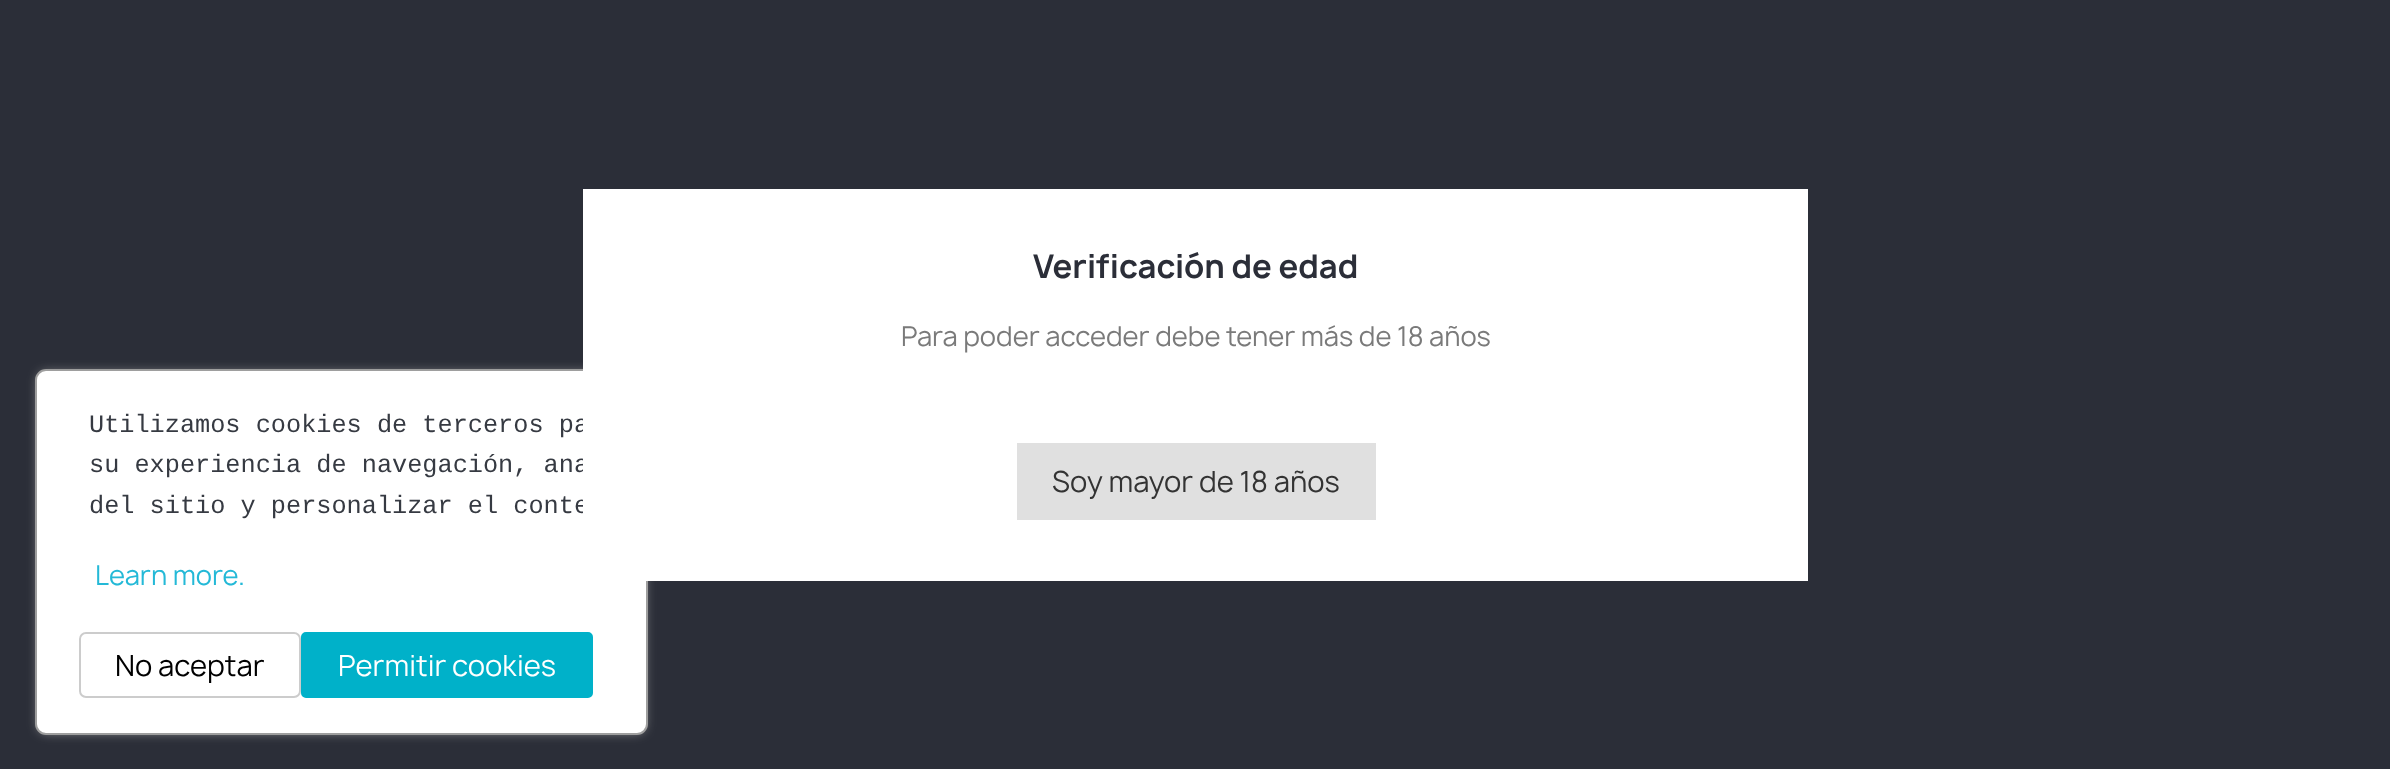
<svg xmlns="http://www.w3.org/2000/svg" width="2390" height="769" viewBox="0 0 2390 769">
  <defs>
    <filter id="blur1" x="-50%" y="-200%" width="200%" height="500%"><feGaussianBlur stdDeviation="6"/></filter>
  </defs>
  <rect width="100%" height="100%" fill="#2b2e38"/>
  <rect x="39" y="373" width="605" height="359" rx="7" fill="#9e9e9e" filter="url(#blur1)"/>
  <rect x="36" y="370" width="611" height="364" rx="10" fill="#ffffff" stroke="#9e9e9e" stroke-width="2"/>
  <text x="89" y="432" font-family="Liberation Mono" font-size="25.25" fill="#363a42">Utilizamos cookies de terceros pa</text>
  <text x="89" y="472" font-family="Liberation Mono" font-size="25.25" fill="#363a42">su experiencia de navegación, ana</text>
  <text x="89" y="513" font-family="Liberation Mono" font-size="25.25" fill="#363a42">del sitio y personalizar el conte</text>
  <rect x="583" y="189" width="1225" height="392" fill="#ffffff"/>
  <text x="1033" y="278" font-family="Manrope" font-size="31.5" font-weight="bold" fill="#2b2e38">Verificación de edad</text>
  <text x="901" y="346" font-family="Manrope" font-size="26.25" fill="#7a7a7a">Para poder acceder debe tener más de 18 años</text>
  <rect x="1017" y="443" width="359" height="77" fill="#e0e0e0"/>
  <text x="1052" y="492" font-family="Manrope" font-size="28" fill="#333333">Soy mayor de 18 años</text>
  <text x="95" y="585" font-family="Manrope" font-size="26.25" fill="#24b9d7">Learn more.</text>
  <rect x="80" y="633" width="220" height="64" rx="6" fill="none" stroke="#cccccc" stroke-width="2"/>
  <text x="115" y="676" font-family="Manrope" font-size="28" fill="#000000">No aceptar</text>
  <rect x="302" y="633" width="290" height="64" rx="4" fill="#00b1c9" stroke="#00b1c9" stroke-width="2"/>
  <text x="338" y="676" font-family="Manrope" font-size="28" fill="#ffffff">Permitir cookies</text>
</svg>
